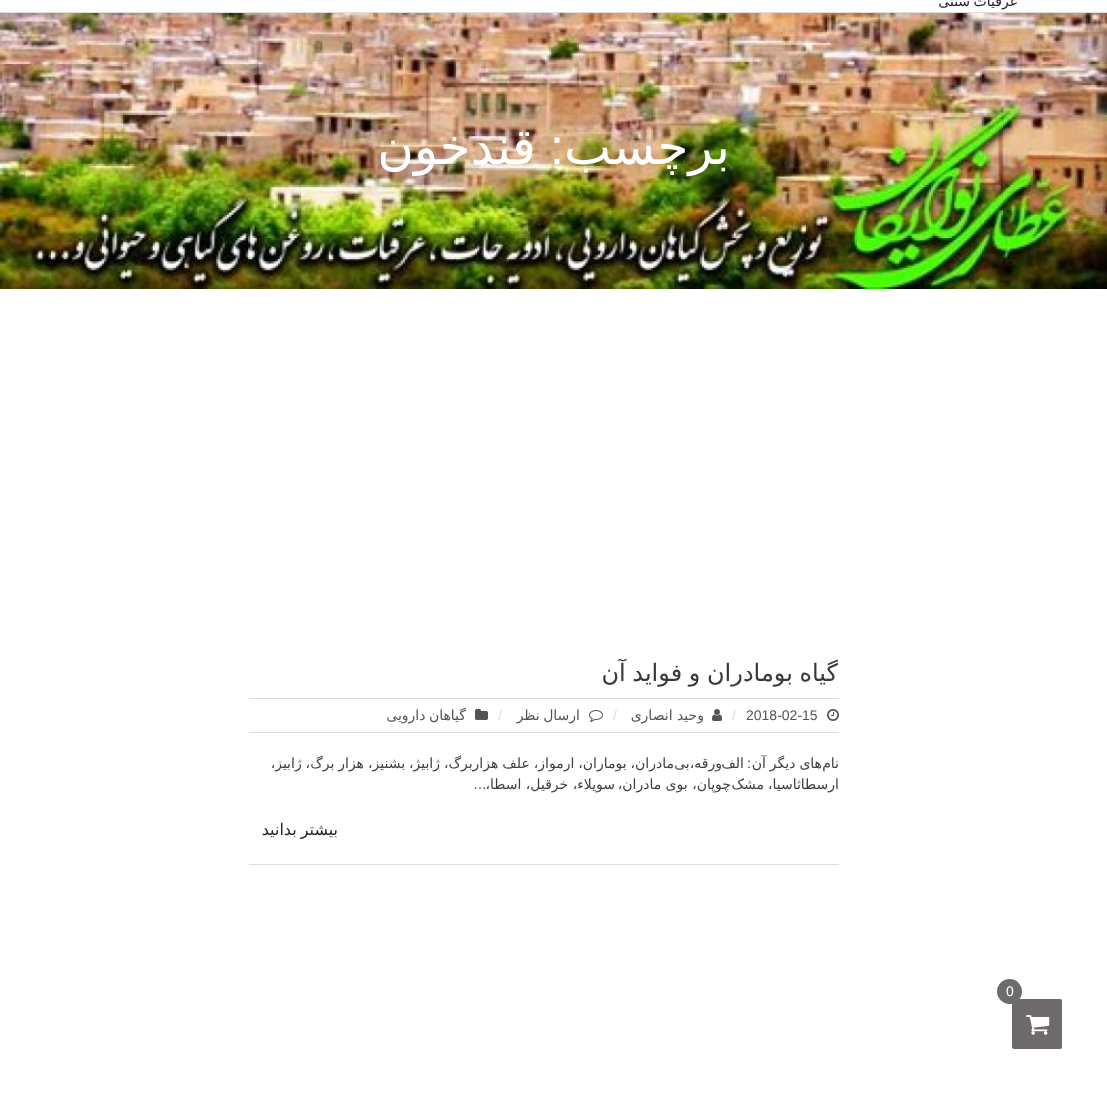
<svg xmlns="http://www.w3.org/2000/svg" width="1107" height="1107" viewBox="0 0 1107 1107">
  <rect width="100%" height="100%" fill="#ffffff"/>
  <rect x="0" y="12" width="1107" height="1" fill="#dddddd"/>
  <text x="1018" y="6" word-spacing="-1" font-family="DejaVu Sans" font-size="14" direction="rtl" fill="#212529">عرقیات سنتی</text>
  <image x="0" y="13" width="1107" height="276" href="img1.png"/>
  <text x="730" y="164" font-family="DejaVu Sans" font-size="50" direction="rtl" fill="#ffffff">برچسب</text>
  <text x="564" y="164" font-family="Liberation Sans" font-size="50" direction="rtl" fill="#ffffff">:</text>
  <text x="536" y="164" font-family="DejaVu Sans" font-size="50" direction="rtl" fill="#ffffff">قندخون</text>
  <rect x="249" y="864" width="590" height="1" fill="#dddddd"/>
  <text x="838" y="681" word-spacing="-1" font-family="DejaVu Sans" font-size="24" direction="rtl" fill="#383838">گیاه بومادران و فواید آن</text>
  <rect x="249" y="698" width="590" height="1" fill="#dddddd"/>
  <rect x="249" y="732" width="590" height="1" fill="#dddddd"/>
  <image x="827" y="709" width="12" height="12" href="img2.png"/>
  <text x="746" y="720" font-family="Liberation Sans" font-size="14" fill="#545454">2018-02-15</text>
  <text x="732" y="720" font-family="Liberation Sans" font-size="14" fill="#dddddd">/</text>
  <image x="712" y="709" width="10" height="12" href="img3.png"/>
  <text x="704" y="720" font-family="DejaVu Sans" font-size="14" direction="rtl" fill="#545454">وحید انصاری</text>
  <text x="613" y="720" font-family="Liberation Sans" font-size="14" fill="#dddddd">/</text>
  <image x="589" y="710" width="14" height="12" href="img4.png"/>
  <text x="580" y="720" word-spacing="-1" font-family="DejaVu Sans" font-size="14" direction="rtl" fill="#545454">ارسال نظر</text>
  <text x="498" y="720" font-family="Liberation Sans" font-size="14" fill="#dddddd">/</text>
  <image x="475" y="709" width="13" height="11" href="img5.png"/>
  <text x="466" y="720" word-spacing="-1" font-family="DejaVu Sans" font-size="14" direction="rtl" fill="#545454">گیاهان دارویی</text>
  <text x="839" y="768" font-family="DejaVu Sans" font-size="14" direction="rtl" fill="#3e3e3e">نام</text>
  <text x="822" y="768" word-spacing="-0.5" font-family="DejaVu Sans" font-size="14" direction="rtl" fill="#3e3e3e">های دیگر آن</text>
  <text x="751" y="768" font-family="Liberation Sans" font-size="14" direction="rtl" fill="#3e3e3e">:</text>
  <text x="744" y="768" font-family="DejaVu Sans" font-size="14" direction="rtl" fill="#3e3e3e">الف</text>
  <text x="722" y="768" font-family="DejaVu Sans" font-size="14" direction="rtl" fill="#3e3e3e">ورقه،بی</text>
  <text x="674" y="768" word-spacing="-0.5" font-family="DejaVu Sans" font-size="14" direction="rtl" fill="#3e3e3e">مادران، بوماران، ارمواز، علف هزاربرگ، ژابیژ، بشنیز، هزار برگ، ژابیز،</text>
  <text x="839" y="789" font-family="DejaVu Sans" font-size="14" direction="rtl" fill="#3e3e3e">ارسطاثاسیا،</text>
  <text x="764" y="789" font-family="DejaVu Sans" font-size="14" direction="rtl" fill="#3e3e3e">مشک</text>
  <text x="731" y="789" font-family="DejaVu Sans" font-size="14" direction="rtl" fill="#3e3e3e">چوپان، بوی مادران،</text>
  <text x="615" y="789" font-family="DejaVu Sans" font-size="14" direction="rtl" fill="#3e3e3e">سویلاء، خرقیل، اسطا،</text>
  <text x="487" y="789" font-family="Liberation Sans" font-size="14" direction="rtl" fill="#3e3e3e">…</text>
  <text x="338" y="835" word-spacing="-1" font-family="DejaVu Sans" font-size="16" direction="rtl" fill="#212529">بیشتر بدانید</text>
  <rect x="1012" y="999" width="50" height="50" rx="2" fill="#6e6a6a"/>
  <circle cx="1009.5" cy="991.5" r="12.5" fill="#6c6c6c"/>
  <text x="1006" y="996" font-family="Liberation Sans" font-size="14" fill="#ffffff">0</text>
  <image x="1026" y="1015" width="24" height="20" href="img6.png"/>
</svg>
